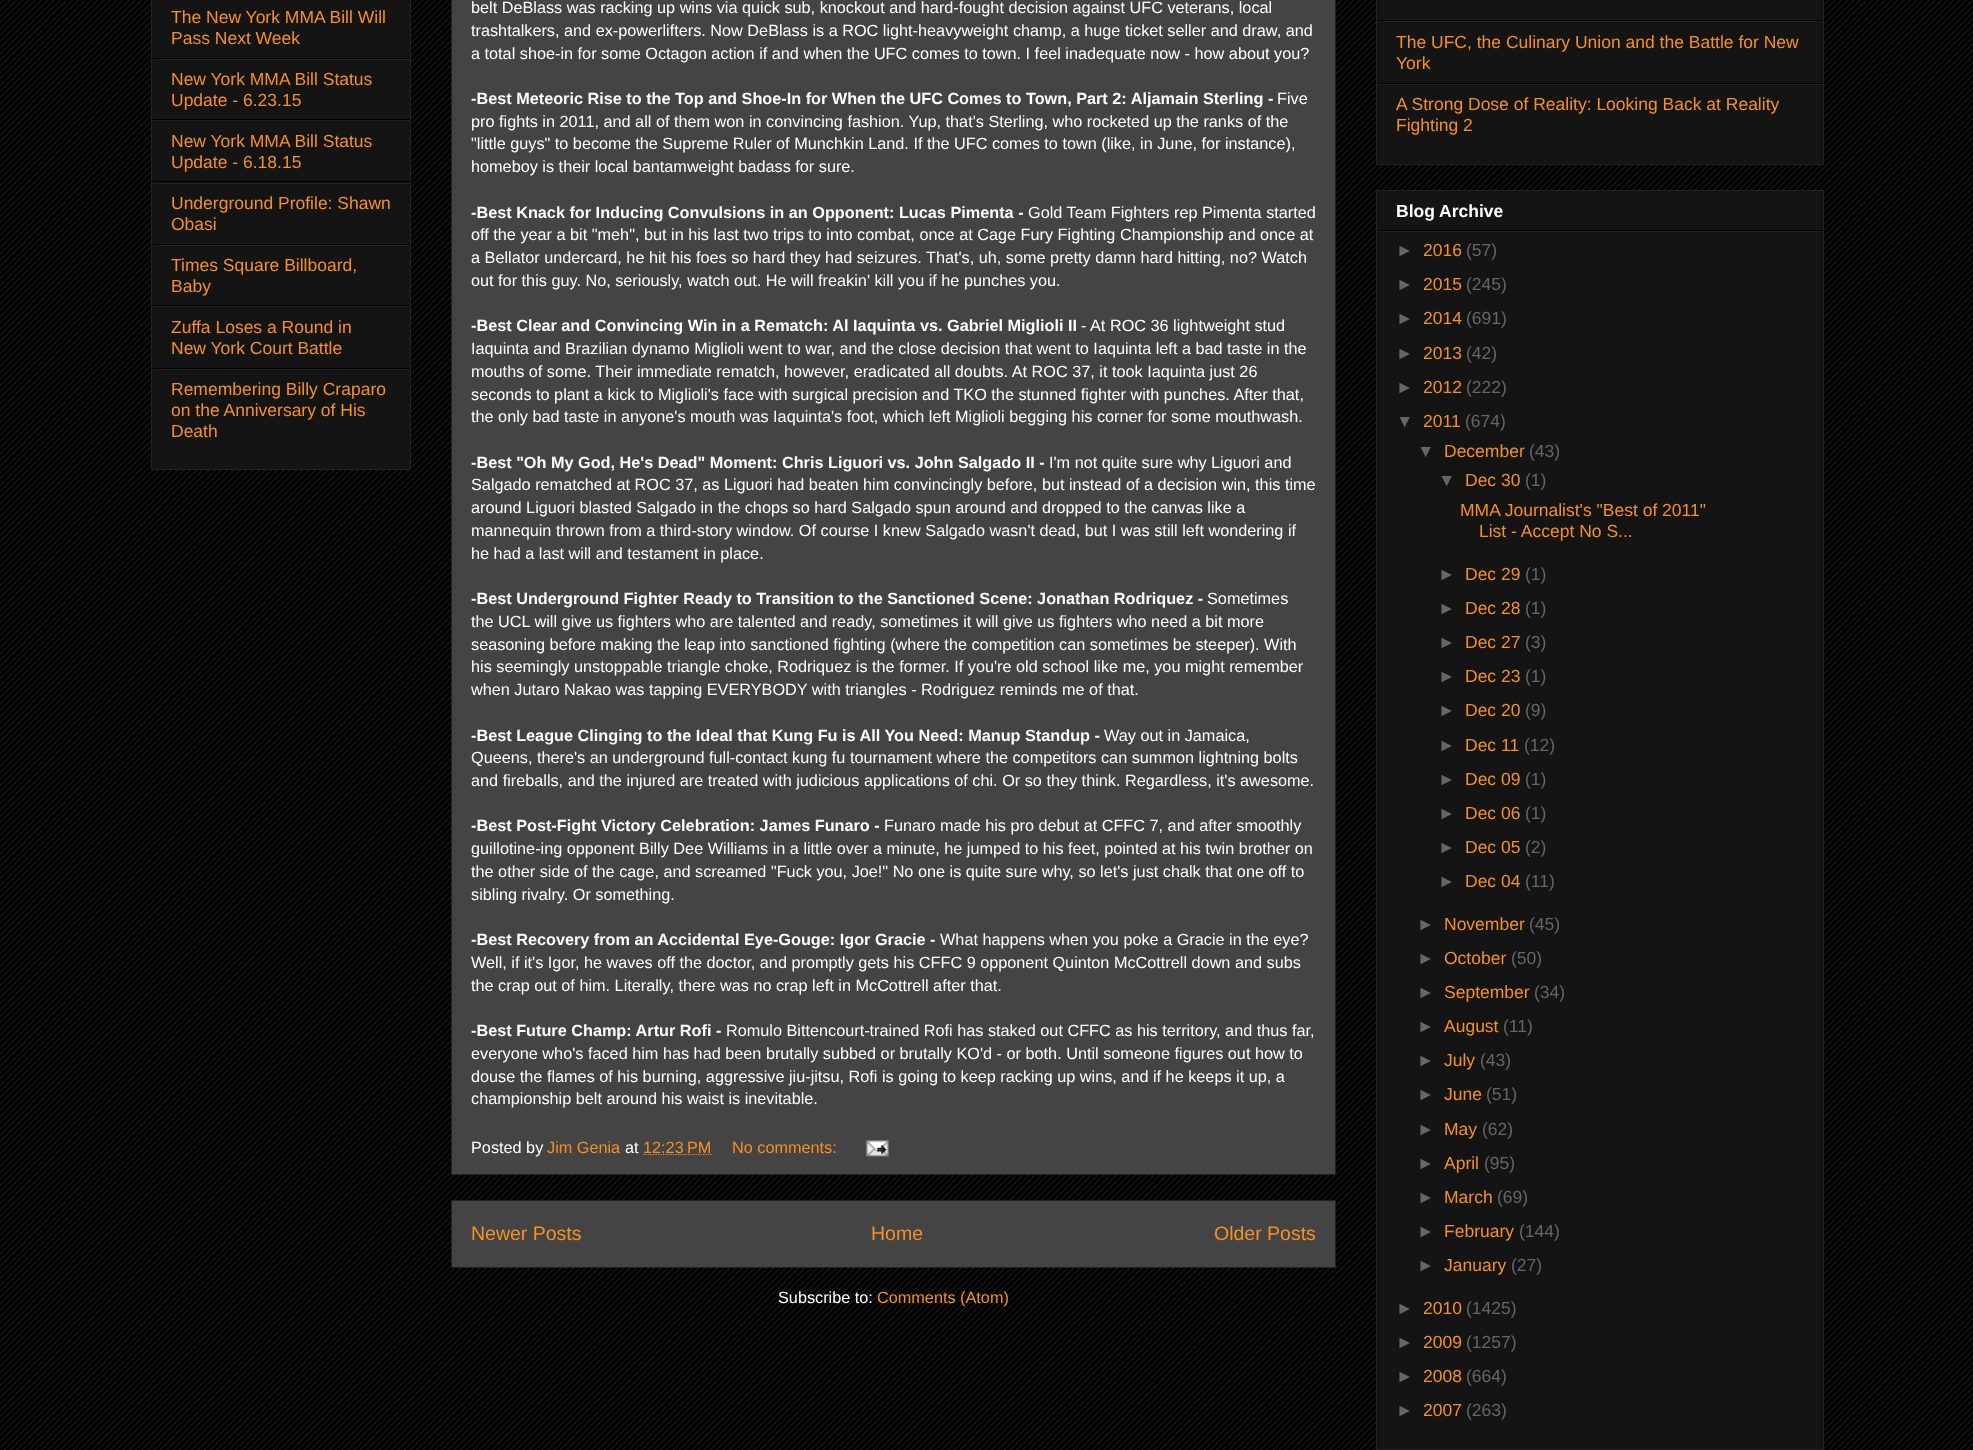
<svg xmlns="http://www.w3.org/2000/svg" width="1973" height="1450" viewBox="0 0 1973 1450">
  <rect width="100%" height="100%" fill="#000000"/>
  <image x="0" y="0" width="1973" height="1450" href="img1.png"/>
  <rect x="151.5" y="-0.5" width="259" height="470" fill="#141414" stroke="#222222"/>
  <rect x="153" y="58" width="257" height="1" fill="#000000"/>
  <text x="171" y="23" font-family="Liberation Sans" font-size="17.5" fill="#f69025">The New York MMA Bill Will</text>
  <text x="171" y="44" font-family="Liberation Sans" font-size="17.5" fill="#f69025">Pass Next Week</text>
  <rect x="153" y="59" width="257" height="1" fill="#222222"/>
  <rect x="153" y="119" width="257" height="1" fill="#000000"/>
  <text x="171" y="85" font-family="Liberation Sans" font-size="17.5" fill="#f69025">New York MMA Bill Status</text>
  <text x="171" y="106" font-family="Liberation Sans" font-size="17.5" fill="#f69025">Update - 6.23.15</text>
  <rect x="153" y="120" width="257" height="1" fill="#222222"/>
  <rect x="153" y="181" width="257" height="1" fill="#000000"/>
  <text x="171" y="147" font-family="Liberation Sans" font-size="17.5" fill="#f69025">New York MMA Bill Status</text>
  <text x="171" y="168" font-family="Liberation Sans" font-size="17.5" fill="#f69025">Update - 6.18.15</text>
  <rect x="153" y="183" width="257" height="1" fill="#222222"/>
  <rect x="153" y="244" width="257" height="1" fill="#000000"/>
  <text x="171" y="209" font-family="Liberation Sans" font-size="17.5" fill="#f69025">Underground Profile: Shawn</text>
  <text x="171" y="230" font-family="Liberation Sans" font-size="17.5" fill="#f69025">Obasi</text>
  <rect x="153" y="245" width="257" height="1" fill="#222222"/>
  <rect x="153" y="305" width="257" height="1" fill="#000000"/>
  <text x="171" y="271" font-family="Liberation Sans" font-size="17.5" fill="#f69025">Times Square Billboard,</text>
  <text x="171" y="292" font-family="Liberation Sans" font-size="17.5" fill="#f69025">Baby</text>
  <rect x="153" y="306" width="257" height="1" fill="#222222"/>
  <rect x="153" y="368" width="257" height="1" fill="#000000"/>
  <text x="171" y="333" font-family="Liberation Sans" font-size="17.5" fill="#f69025">Zuffa Loses a Round in</text>
  <text x="171" y="354" font-family="Liberation Sans" font-size="17.5" fill="#f69025">New York Court Battle</text>
  <rect x="153" y="369" width="257" height="1" fill="#222222"/>
  <text x="171" y="395" font-family="Liberation Sans" font-size="17.5" fill="#f69025">Remembering Billy Craparo</text>
  <text x="171" y="416" font-family="Liberation Sans" font-size="17.5" fill="#f69025">on the Anniversary of His</text>
  <text x="171" y="437" font-family="Liberation Sans" font-size="17.5" fill="#f69025">Death</text>
  <rect x="451.5" y="-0.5" width="884" height="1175" fill="#444444" stroke="#222222"/>
  <text x="471" y="13" font-family="Liberation Sans" font-size="16.25" fill="#ffffff">belt DeBlass was racking up wins via quick sub, knockout and hard-fought decision against UFC veterans, local</text>
  <text x="471" y="36" font-family="Liberation Sans" font-size="16.25" fill="#ffffff">trashtalkers, and ex-powerlifters. Now DeBlass is a ROC light-heavyweight champ, a huge ticket seller and draw, and</text>
  <text x="471" y="59" font-family="Liberation Sans" font-size="16.25" fill="#ffffff">a total shoe-in for some Octagon action if and when the UFC comes to town. I feel inadequate now - how about you?</text>
  <text x="471" y="104" font-family="Liberation Sans" font-size="16.25" font-weight="bold" fill="#ffffff">-Best Meteoric Rise to the Top and Shoe-In for When the UFC Comes to Town, Part 2: Aljamain Sterling -</text>
  <text x="1277" y="104" font-family="Liberation Sans" font-size="16.25" fill="#ffffff">Five</text>
  <text x="471" y="127" font-family="Liberation Sans" font-size="16.25" fill="#ffffff">pro fights in 2011, and all of them won in convincing fashion. Yup, that's Sterling, who rocketed up the ranks of the</text>
  <text x="471" y="149" font-family="Liberation Sans" font-size="16.25" fill="#ffffff">"little guys" to become the Supreme Ruler of Munchkin Land. If the UFC comes to town (like, in June, for instance),</text>
  <text x="471" y="172" font-family="Liberation Sans" font-size="16.25" fill="#ffffff">homeboy is their local bantamweight badass for sure.</text>
  <text x="471" y="218" font-family="Liberation Sans" font-size="16.25" font-weight="bold" fill="#ffffff">-Best Knack for Inducing Convulsions in an Opponent: Lucas Pimenta -</text>
  <text x="1028" y="218" font-family="Liberation Sans" font-size="16.25" fill="#ffffff">Gold Team Fighters rep Pimenta started</text>
  <text x="471" y="240" font-family="Liberation Sans" font-size="16.25" fill="#ffffff">off the year a bit "meh", but in his last two trips to into combat, once at Cage Fury Fighting Championship and once at</text>
  <text x="471" y="263" font-family="Liberation Sans" font-size="16.25" fill="#ffffff">a Bellator undercard, he hit his foes so hard they had seizures. That's, uh, some pretty damn hard hitting, no? Watch</text>
  <text x="471" y="286" font-family="Liberation Sans" font-size="16.25" fill="#ffffff">out for this guy. No, seriously, watch out. He will freakin' kill you if he punches you.</text>
  <text x="471" y="331" font-family="Liberation Sans" font-size="16.25" font-weight="bold" fill="#ffffff">-Best Clear and Convincing Win in a Rematch: Al Iaquinta vs. Gabriel Miglioli II</text>
  <text x="1081" y="331" font-family="Liberation Sans" font-size="16.25" fill="#ffffff">- At ROC 36 lightweight stud</text>
  <text x="471" y="354" font-family="Liberation Sans" font-size="16.25" fill="#ffffff">Iaquinta and Brazilian dynamo Miglioli went to war, and the close decision that went to Iaquinta left a bad taste in the</text>
  <text x="471" y="377" font-family="Liberation Sans" font-size="16.25" fill="#ffffff">mouths of some. Their immediate rematch, however, eradicated all doubts. At ROC 37, it took Iaquinta just 26</text>
  <text x="471" y="400" font-family="Liberation Sans" font-size="16.25" fill="#ffffff">seconds to plant a kick to Miglioli's face with surgical precision and TKO the stunned fighter with punches. After that,</text>
  <text x="471" y="422" font-family="Liberation Sans" font-size="16.25" fill="#ffffff">the only bad taste in anyone's mouth was Iaquinta's foot, which left Miglioli begging his corner for some mouthwash.</text>
  <text x="471" y="468" font-family="Liberation Sans" font-size="16.25" font-weight="bold" fill="#ffffff">-Best "Oh My God, He's Dead" Moment: Chris Liguori vs. John Salgado II -</text>
  <text x="1049" y="468" font-family="Liberation Sans" font-size="16.25" fill="#ffffff">I'm not quite sure why Liguori and</text>
  <text x="471" y="490" font-family="Liberation Sans" font-size="16.25" fill="#ffffff">Salgado rematched at ROC 37, as Liguori had beaten him convincingly before, but instead of a decision win, this time</text>
  <text x="471" y="513" font-family="Liberation Sans" font-size="16.25" fill="#ffffff">around Liguori blasted Salgado in the chops so hard Salgado spun around and dropped to the canvas like a</text>
  <text x="471" y="536" font-family="Liberation Sans" font-size="16.25" fill="#ffffff">mannequin thrown from a third-story window. Of course I knew Salgado wasn't dead, but I was still left wondering if</text>
  <text x="471" y="559" font-family="Liberation Sans" font-size="16.25" fill="#ffffff">he had a last will and testament in place.</text>
  <text x="471" y="604" font-family="Liberation Sans" font-size="16.25" font-weight="bold" fill="#ffffff">-Best Underground Fighter Ready to Transition to the Sanctioned Scene: Jonathan Rodriquez -</text>
  <text x="1207" y="604" font-family="Liberation Sans" font-size="16.25" fill="#ffffff">Sometimes</text>
  <text x="471" y="627" font-family="Liberation Sans" font-size="16.25" fill="#ffffff">the UCL will give us fighters who are talented and ready, sometimes it will give us fighters who need a bit more</text>
  <text x="471" y="650" font-family="Liberation Sans" font-size="16.25" fill="#ffffff">seasoning before making the leap into sanctioned fighting (where the competition can sometimes be steeper). With</text>
  <text x="471" y="672" font-family="Liberation Sans" font-size="16.25" fill="#ffffff">his seemingly unstoppable triangle choke, Rodriquez is the former. If you're old school like me, you might remember</text>
  <text x="471" y="695" font-family="Liberation Sans" font-size="16.25" fill="#ffffff">when Jutaro Nakao was tapping EVERYBODY with triangles - Rodriguez reminds me of that.</text>
  <text x="471" y="741" font-family="Liberation Sans" font-size="16.25" font-weight="bold" fill="#ffffff">-Best League Clinging to the Ideal that Kung Fu is All You Need: Manup Standup -</text>
  <text x="1104" y="741" font-family="Liberation Sans" font-size="16.25" fill="#ffffff">Way out in Jamaica,</text>
  <text x="471" y="763" font-family="Liberation Sans" font-size="16.25" fill="#ffffff">Queens, there's an underground full-contact kung fu tournament where the competitors can summon lightning bolts</text>
  <text x="471" y="786" font-family="Liberation Sans" font-size="16.25" fill="#ffffff">and fireballs, and the injured are treated with judicious applications of chi. Or so they think. Regardless, it's awesome.</text>
  <text x="471" y="831" font-family="Liberation Sans" font-size="16.25" font-weight="bold" fill="#ffffff">-Best Post-Fight Victory Celebration: James Funaro -</text>
  <text x="884" y="831" font-family="Liberation Sans" font-size="16.25" fill="#ffffff">Funaro made his pro debut at CFFC 7, and after smoothly</text>
  <text x="471" y="854" font-family="Liberation Sans" font-size="16.25" fill="#ffffff">guillotine-ing opponent Billy Dee Williams in a little over a minute, he jumped to his feet, pointed at his twin brother on</text>
  <text x="471" y="877" font-family="Liberation Sans" font-size="16.25" fill="#ffffff">the other side of the cage, and screamed "Fuck you, Joe!" No one is quite sure why, so let's just chalk that one off to</text>
  <text x="471" y="900" font-family="Liberation Sans" font-size="16.25" fill="#ffffff">sibling rivalry. Or something.</text>
  <text x="471" y="945" font-family="Liberation Sans" font-size="16.25" font-weight="bold" fill="#ffffff">-Best Recovery from an Accidental Eye-Gouge: Igor Gracie -</text>
  <text x="940" y="945" font-family="Liberation Sans" font-size="16.25" fill="#ffffff">What happens when you poke a Gracie in the eye?</text>
  <text x="471" y="968" font-family="Liberation Sans" font-size="16.25" fill="#ffffff">Well, if it's Igor, he waves off the doctor, and promptly gets his CFFC 9 opponent Quinton McCottrell down and subs</text>
  <text x="471" y="991" font-family="Liberation Sans" font-size="16.25" fill="#ffffff">the crap out of him. Literally, there was no crap left in McCottrell after that.</text>
  <text x="471" y="1036" font-family="Liberation Sans" font-size="16.25" font-weight="bold" fill="#ffffff">-Best Future Champ: Artur Rofi -</text>
  <text x="726" y="1036" font-family="Liberation Sans" font-size="16.25" fill="#ffffff">Romulo Bittencourt-trained Rofi has staked out CFFC as his territory, and thus far,</text>
  <text x="471" y="1059" font-family="Liberation Sans" font-size="16.25" fill="#ffffff">everyone who's faced him has had been brutally subbed or brutally KO'd - or both. Until someone figures out how to</text>
  <text x="471" y="1082" font-family="Liberation Sans" font-size="16.25" fill="#ffffff">douse the flames of his burning, aggressive jiu-jitsu, Rofi is going to keep racking up wins, and if he keeps it up, a</text>
  <text x="471" y="1104" font-family="Liberation Sans" font-size="16.25" fill="#ffffff">championship belt around his waist is inevitable.</text>
  <text x="471" y="1153" font-family="Liberation Sans" font-size="16.25" fill="#ffffff">Posted by</text>
  <text x="547" y="1153" font-family="Liberation Sans" font-size="16.25" fill="#f69025">Jim Genia</text>
  <text x="625" y="1153" font-family="Liberation Sans" font-size="16.25" fill="#ffffff">at</text>
  <path d="M643 1154.5H711.5" fill="none" stroke="#f69025" stroke-width="1.2" stroke-dasharray="1.25 1.25"/>
  <text x="643" y="1153" font-family="Liberation Sans" font-size="16.25" fill="#f69025">12:23 PM</text>
  <text x="732" y="1153" font-family="Liberation Sans" font-size="16.25" fill="#f69025">No comments:</text>
  <image x="866" y="1140" width="23" height="17" href="img2.png"/>
  <rect x="451.5" y="1200.5" width="884" height="67" fill="#444444" stroke="#222222"/>
  <text x="471" y="1240" font-family="Liberation Sans" font-size="19.5" fill="#f69025">Newer Posts</text>
  <text x="871" y="1240" font-family="Liberation Sans" font-size="19.5" fill="#f69025">Home</text>
  <text x="1214" y="1240" font-family="Liberation Sans" font-size="19.5" fill="#f69025">Older Posts</text>
  <text x="778" y="1303" font-family="Liberation Sans" font-size="16.25" fill="#ffffff">Subscribe to:</text>
  <text x="877" y="1303" font-family="Liberation Sans" font-size="16.25" fill="#f69025">Comments (Atom)</text>
  <rect x="1376.5" y="-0.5" width="447" height="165" fill="#141414" stroke="#222222"/>
  <rect x="1378" y="20" width="445" height="1" fill="#000000"/>
  <rect x="1378" y="21" width="445" height="1" fill="#222222"/>
  <rect x="1378" y="83" width="445" height="1" fill="#000000"/>
  <text x="1396" y="48" font-family="Liberation Sans" font-size="17.5" fill="#f69025">The UFC, the Culinary Union and the Battle for New</text>
  <text x="1396" y="69" font-family="Liberation Sans" font-size="17.5" fill="#f69025">York</text>
  <rect x="1378" y="84" width="445" height="1" fill="#222222"/>
  <text x="1396" y="110" font-family="Liberation Sans" font-size="17.5" fill="#f69025">A Strong Dose of Reality: Looking Back at Reality</text>
  <text x="1396" y="131" font-family="Liberation Sans" font-size="17.5" fill="#f69025">Fighting 2</text>
  <rect x="1376.5" y="190.5" width="447" height="1259" fill="#141414" stroke="#222222"/>
  <rect x="1378" y="230" width="445" height="1" fill="#000000"/>
  <text x="1396" y="217" font-family="Liberation Sans" font-size="17.5" font-weight="bold" fill="#ffffff">Blog Archive</text>
  <rect x="1378" y="231" width="445" height="1" fill="#222222"/>
  <text x="1396" y="256" font-family="Liberation Sans" font-size="17.5" fill="#666666">►</text>
  <text x="1423" y="256" font-family="Liberation Sans" font-size="17.5" fill="#f69025">2016</text>
  <text x="1466" y="256" font-family="Liberation Sans" font-size="17.5" fill="#666666">(57)</text>
  <text x="1396" y="290" font-family="Liberation Sans" font-size="17.5" fill="#666666">►</text>
  <text x="1423" y="290" font-family="Liberation Sans" font-size="17.5" fill="#f69025">2015</text>
  <text x="1466" y="290" font-family="Liberation Sans" font-size="17.5" fill="#666666">(245)</text>
  <text x="1396" y="324" font-family="Liberation Sans" font-size="17.5" fill="#666666">►</text>
  <text x="1423" y="324" font-family="Liberation Sans" font-size="17.5" fill="#f69025">2014</text>
  <text x="1466" y="324" font-family="Liberation Sans" font-size="17.5" fill="#666666">(691)</text>
  <text x="1396" y="359" font-family="Liberation Sans" font-size="17.5" fill="#666666">►</text>
  <text x="1423" y="359" font-family="Liberation Sans" font-size="17.5" fill="#f69025">2013</text>
  <text x="1466" y="359" font-family="Liberation Sans" font-size="17.5" fill="#666666">(42)</text>
  <text x="1396" y="393" font-family="Liberation Sans" font-size="17.5" fill="#666666">►</text>
  <text x="1423" y="393" font-family="Liberation Sans" font-size="17.5" fill="#f69025">2012</text>
  <text x="1466" y="393" font-family="Liberation Sans" font-size="17.5" fill="#666666">(222)</text>
  <text x="1396" y="427" font-family="Liberation Sans" font-size="17.5" fill="#666666">▼</text>
  <text x="1423" y="427" font-family="Liberation Sans" font-size="17.5" fill="#f69025">2011</text>
  <text x="1465" y="427" font-family="Liberation Sans" font-size="17.5" fill="#666666">(674)</text>
  <text x="1417" y="457" font-family="Liberation Sans" font-size="17.5" fill="#666666">▼</text>
  <text x="1444" y="457" font-family="Liberation Sans" font-size="17.5" fill="#f69025">December</text>
  <text x="1529" y="457" font-family="Liberation Sans" font-size="17.5" fill="#666666">(43)</text>
  <text x="1438" y="486" font-family="Liberation Sans" font-size="17.5" fill="#666666">▼</text>
  <text x="1465" y="486" font-family="Liberation Sans" font-size="17.5" fill="#f69025">Dec 30</text>
  <text x="1525" y="486" font-family="Liberation Sans" font-size="17.5" fill="#666666">(1)</text>
  <text x="1460" y="516" font-family="Liberation Sans" font-size="17.5" fill="#f69025">MMA Journalist's "Best of 2011"</text>
  <text x="1479" y="537" font-family="Liberation Sans" font-size="17.5" fill="#f69025">List - Accept No S...</text>
  <text x="1438" y="580" font-family="Liberation Sans" font-size="17.5" fill="#666666">►</text>
  <text x="1465" y="580" font-family="Liberation Sans" font-size="17.5" fill="#f69025">Dec 29</text>
  <text x="1525" y="580" font-family="Liberation Sans" font-size="17.5" fill="#666666">(1)</text>
  <text x="1438" y="614" font-family="Liberation Sans" font-size="17.5" fill="#666666">►</text>
  <text x="1465" y="614" font-family="Liberation Sans" font-size="17.5" fill="#f69025">Dec 28</text>
  <text x="1525" y="614" font-family="Liberation Sans" font-size="17.5" fill="#666666">(1)</text>
  <text x="1438" y="648" font-family="Liberation Sans" font-size="17.5" fill="#666666">►</text>
  <text x="1465" y="648" font-family="Liberation Sans" font-size="17.5" fill="#f69025">Dec 27</text>
  <text x="1525" y="648" font-family="Liberation Sans" font-size="17.5" fill="#666666">(3)</text>
  <text x="1438" y="682" font-family="Liberation Sans" font-size="17.5" fill="#666666">►</text>
  <text x="1465" y="682" font-family="Liberation Sans" font-size="17.5" fill="#f69025">Dec 23</text>
  <text x="1525" y="682" font-family="Liberation Sans" font-size="17.5" fill="#666666">(1)</text>
  <text x="1438" y="716" font-family="Liberation Sans" font-size="17.5" fill="#666666">►</text>
  <text x="1465" y="716" font-family="Liberation Sans" font-size="17.5" fill="#f69025">Dec 20</text>
  <text x="1525" y="716" font-family="Liberation Sans" font-size="17.5" fill="#666666">(9)</text>
  <text x="1438" y="751" font-family="Liberation Sans" font-size="17.5" fill="#666666">►</text>
  <text x="1465" y="751" font-family="Liberation Sans" font-size="17.5" fill="#f69025">Dec 11</text>
  <text x="1524" y="751" font-family="Liberation Sans" font-size="17.5" fill="#666666">(12)</text>
  <text x="1438" y="785" font-family="Liberation Sans" font-size="17.5" fill="#666666">►</text>
  <text x="1465" y="785" font-family="Liberation Sans" font-size="17.5" fill="#f69025">Dec 09</text>
  <text x="1525" y="785" font-family="Liberation Sans" font-size="17.5" fill="#666666">(1)</text>
  <text x="1438" y="819" font-family="Liberation Sans" font-size="17.5" fill="#666666">►</text>
  <text x="1465" y="819" font-family="Liberation Sans" font-size="17.5" fill="#f69025">Dec 06</text>
  <text x="1525" y="819" font-family="Liberation Sans" font-size="17.5" fill="#666666">(1)</text>
  <text x="1438" y="853" font-family="Liberation Sans" font-size="17.5" fill="#666666">►</text>
  <text x="1465" y="853" font-family="Liberation Sans" font-size="17.5" fill="#f69025">Dec 05</text>
  <text x="1525" y="853" font-family="Liberation Sans" font-size="17.5" fill="#666666">(2)</text>
  <text x="1438" y="887" font-family="Liberation Sans" font-size="17.5" fill="#666666">►</text>
  <text x="1465" y="887" font-family="Liberation Sans" font-size="17.5" fill="#f69025">Dec 04</text>
  <text x="1525" y="887" font-family="Liberation Sans" font-size="17.5" fill="#666666">(11)</text>
  <text x="1417" y="930" font-family="Liberation Sans" font-size="17.5" fill="#666666">►</text>
  <text x="1444" y="930" font-family="Liberation Sans" font-size="17.5" fill="#f69025">November</text>
  <text x="1529" y="930" font-family="Liberation Sans" font-size="17.5" fill="#666666">(45)</text>
  <text x="1417" y="964" font-family="Liberation Sans" font-size="17.5" fill="#666666">►</text>
  <text x="1444" y="964" font-family="Liberation Sans" font-size="17.5" fill="#f69025">October</text>
  <text x="1511" y="964" font-family="Liberation Sans" font-size="17.5" fill="#666666">(50)</text>
  <text x="1417" y="998" font-family="Liberation Sans" font-size="17.5" fill="#666666">►</text>
  <text x="1444" y="998" font-family="Liberation Sans" font-size="17.5" fill="#f69025">September</text>
  <text x="1534" y="998" font-family="Liberation Sans" font-size="17.5" fill="#666666">(34)</text>
  <text x="1417" y="1032" font-family="Liberation Sans" font-size="17.5" fill="#666666">►</text>
  <text x="1444" y="1032" font-family="Liberation Sans" font-size="17.5" fill="#f69025">August</text>
  <text x="1503" y="1032" font-family="Liberation Sans" font-size="17.5" fill="#666666">(11)</text>
  <text x="1417" y="1066" font-family="Liberation Sans" font-size="17.5" fill="#666666">►</text>
  <text x="1444" y="1066" font-family="Liberation Sans" font-size="17.5" fill="#f69025">July</text>
  <text x="1480" y="1066" font-family="Liberation Sans" font-size="17.5" fill="#666666">(43)</text>
  <text x="1417" y="1100" font-family="Liberation Sans" font-size="17.5" fill="#666666">►</text>
  <text x="1444" y="1100" font-family="Liberation Sans" font-size="17.5" fill="#f69025">June</text>
  <text x="1486" y="1100" font-family="Liberation Sans" font-size="17.5" fill="#666666">(51)</text>
  <text x="1417" y="1135" font-family="Liberation Sans" font-size="17.5" fill="#666666">►</text>
  <text x="1444" y="1135" font-family="Liberation Sans" font-size="17.5" fill="#f69025">May</text>
  <text x="1482" y="1135" font-family="Liberation Sans" font-size="17.5" fill="#666666">(62)</text>
  <text x="1417" y="1169" font-family="Liberation Sans" font-size="17.5" fill="#666666">►</text>
  <text x="1444" y="1169" font-family="Liberation Sans" font-size="17.5" fill="#f69025">April</text>
  <text x="1484" y="1169" font-family="Liberation Sans" font-size="17.5" fill="#666666">(95)</text>
  <text x="1417" y="1203" font-family="Liberation Sans" font-size="17.5" fill="#666666">►</text>
  <text x="1444" y="1203" font-family="Liberation Sans" font-size="17.5" fill="#f69025">March</text>
  <text x="1497" y="1203" font-family="Liberation Sans" font-size="17.5" fill="#666666">(69)</text>
  <text x="1417" y="1237" font-family="Liberation Sans" font-size="17.5" fill="#666666">►</text>
  <text x="1444" y="1237" font-family="Liberation Sans" font-size="17.5" fill="#f69025">February</text>
  <text x="1519" y="1237" font-family="Liberation Sans" font-size="17.5" fill="#666666">(144)</text>
  <text x="1417" y="1271" font-family="Liberation Sans" font-size="17.5" fill="#666666">►</text>
  <text x="1444" y="1271" font-family="Liberation Sans" font-size="17.5" fill="#f69025">January</text>
  <text x="1511" y="1271" font-family="Liberation Sans" font-size="17.5" fill="#666666">(27)</text>
  <text x="1396" y="1314" font-family="Liberation Sans" font-size="17.5" fill="#666666">►</text>
  <text x="1423" y="1314" font-family="Liberation Sans" font-size="17.5" fill="#f69025">2010</text>
  <text x="1466" y="1314" font-family="Liberation Sans" font-size="17.5" fill="#666666">(1425)</text>
  <text x="1396" y="1348" font-family="Liberation Sans" font-size="17.5" fill="#666666">►</text>
  <text x="1423" y="1348" font-family="Liberation Sans" font-size="17.5" fill="#f69025">2009</text>
  <text x="1466" y="1348" font-family="Liberation Sans" font-size="17.5" fill="#666666">(1257)</text>
  <text x="1396" y="1382" font-family="Liberation Sans" font-size="17.5" fill="#666666">►</text>
  <text x="1423" y="1382" font-family="Liberation Sans" font-size="17.5" fill="#f69025">2008</text>
  <text x="1466" y="1382" font-family="Liberation Sans" font-size="17.5" fill="#666666">(664)</text>
  <text x="1396" y="1416" font-family="Liberation Sans" font-size="17.5" fill="#666666">►</text>
  <text x="1423" y="1416" font-family="Liberation Sans" font-size="17.5" fill="#f69025">2007</text>
  <text x="1466" y="1416" font-family="Liberation Sans" font-size="17.5" fill="#666666">(263)</text>
</svg>
